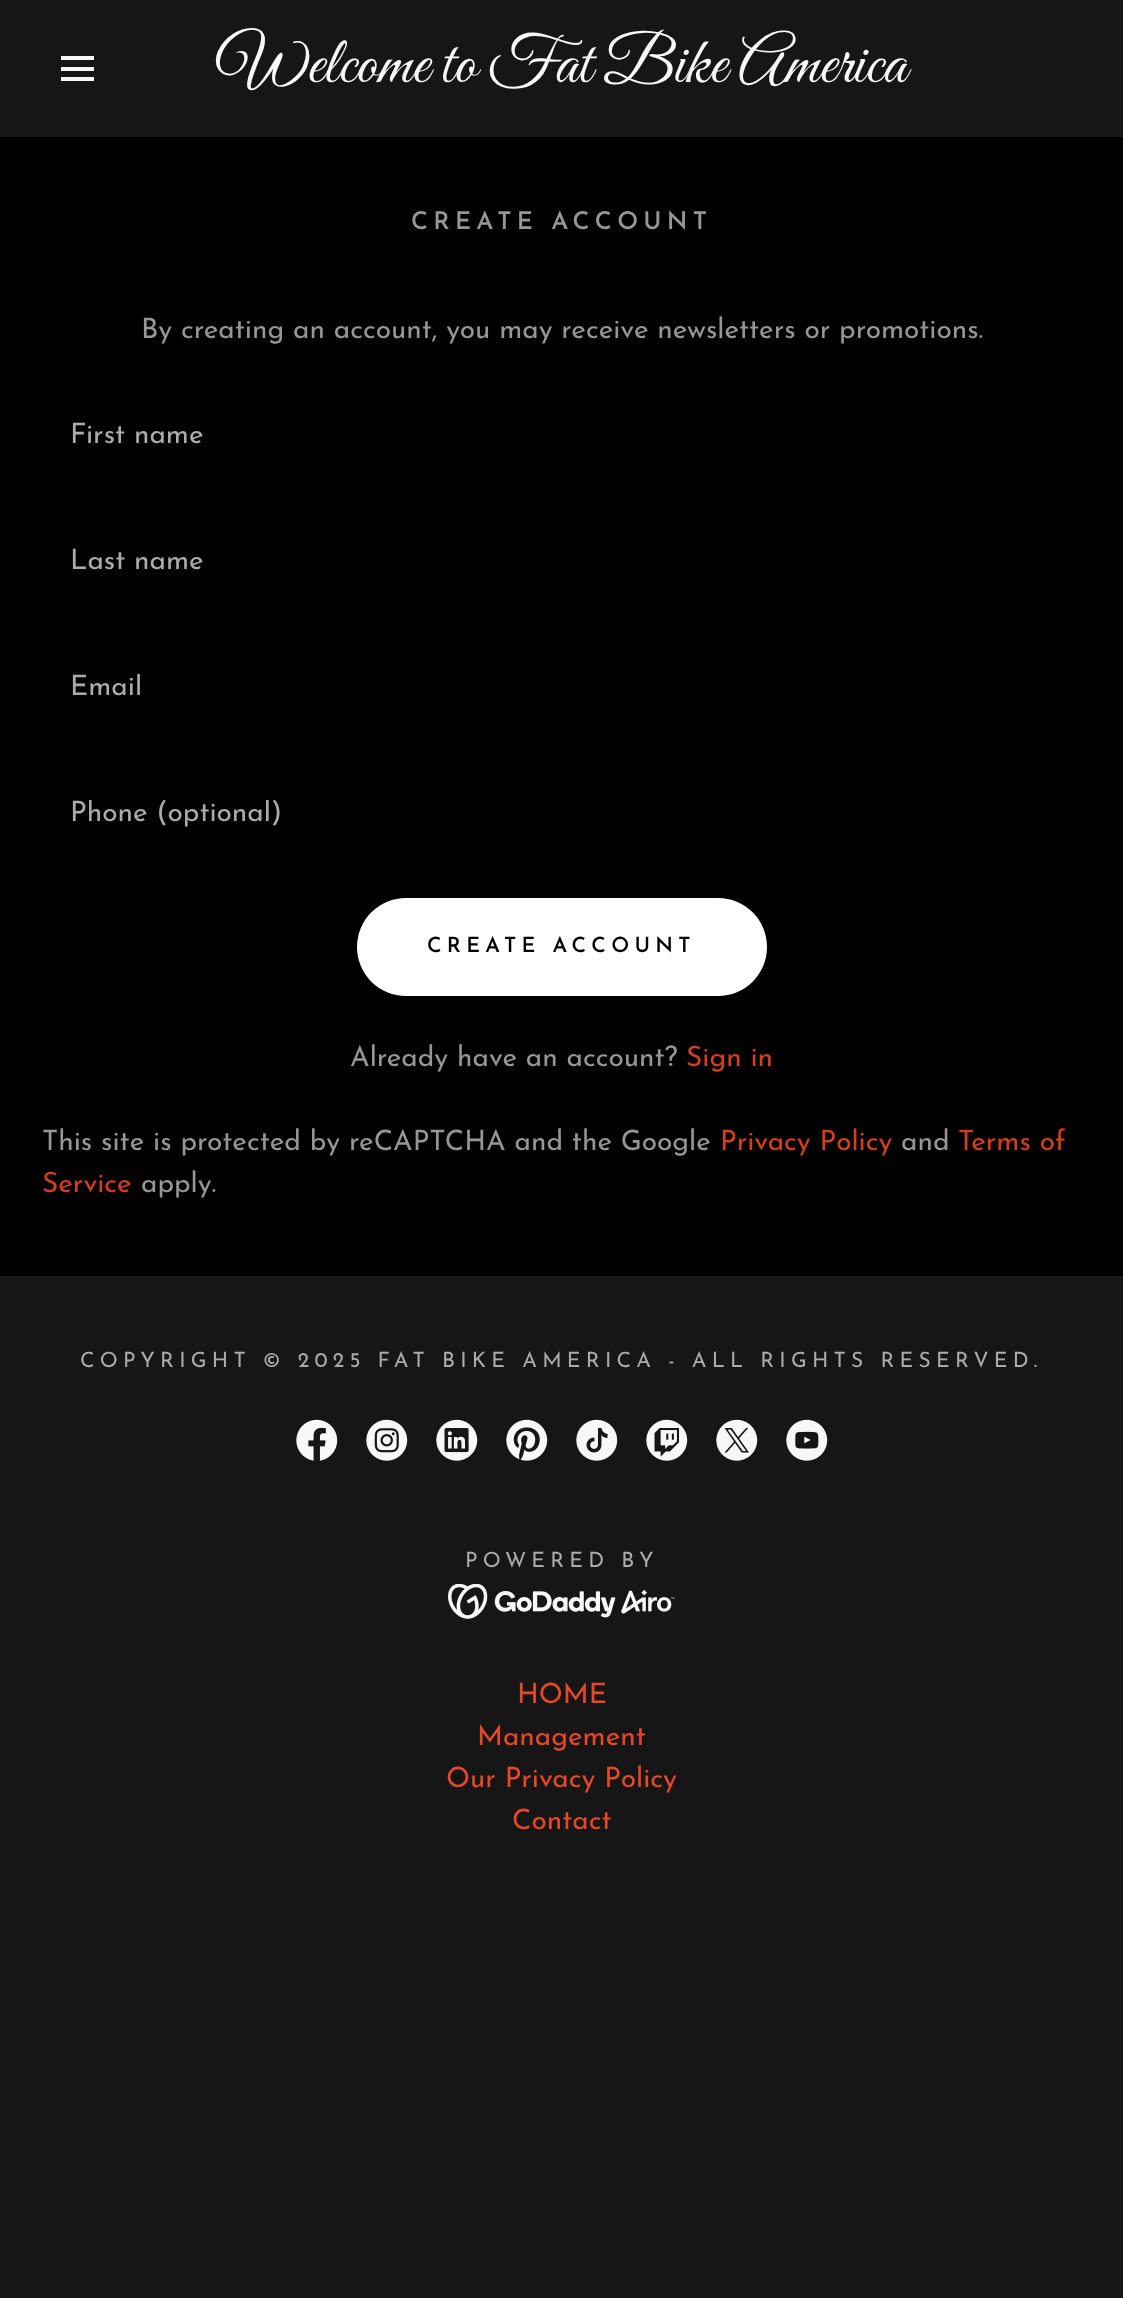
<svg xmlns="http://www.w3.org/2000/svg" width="1123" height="2298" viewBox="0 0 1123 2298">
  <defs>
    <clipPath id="clip1"><rect x="70" y="674" width="984" height="28"/></clipPath>
    <clipPath id="clip2"><rect x="70" y="800" width="984" height="28"/></clipPath>
  </defs>
  <rect width="100%" height="100%" fill="#161616"/>
  <rect x="61" y="56" width="33" height="4" fill="#f7f7f7"/>
  <rect x="61" y="67" width="33" height="4" fill="#f7f7f7"/>
  <rect x="61" y="77" width="33" height="4" fill="#f7f7f7"/>
  <text x="217" y="82" font-family="Great Vibes" font-size="66.5" fill="#f7f7f7">Welcome to Fat Bike America</text>
  <rect x="0" y="137" width="1123" height="1139" fill="#000000"/>
  <text x="411" y="229" font-family="Josefin Sans" font-size="24.5" font-weight="600" letter-spacing="5.25" fill="#969696">CREATE ACCOUNT</text>
  <text x="141" y="338" font-family="Josefin Sans" font-size="28" fill="#969696">By creating an account, you may receive newsletters or promotions.</text>
  <text x="70" y="443" font-family="Josefin Sans" font-size="28" fill="#ababab">First name</text>
  <text x="70" y="569" font-family="Josefin Sans" font-size="28" fill="#ababab">Last name</text>
  <g clip-path="url(#clip1)">
    <text x="70" y="695" font-family="Josefin Sans" font-size="28" fill="#ababab">Email</text>
  </g>
  <g clip-path="url(#clip2)">
    <text x="70" y="821" font-family="Josefin Sans" font-size="28" fill="#ababab">Phone (optional)</text>
  </g>
  <rect x="357" y="898" width="410" height="98" rx="49" fill="#ffffff"/>
  <text x="427" y="952" font-family="Josefin Sans" font-size="21" font-weight="600" letter-spacing="5.25" fill="#000000">CREATE ACCOUNT</text>
  <text x="350" y="1066" font-family="Josefin Sans" font-size="28" fill="#969696">Already have an account?</text>
  <text x="686" y="1066" font-family="Josefin Sans" font-size="28" fill="#d63d20">Sign in</text>
  <text x="42" y="1150" font-family="Josefin Sans" font-size="28" fill="#969696">This site is protected by reCAPTCHA and the Google</text>
  <text x="720" y="1150" font-family="Josefin Sans" font-size="28" fill="#d63d20">Privacy Policy</text>
  <text x="901" y="1150" font-family="Josefin Sans" font-size="28" fill="#969696">and</text>
  <text x="958" y="1150" font-family="Josefin Sans" font-size="28" fill="#d63d20">Terms of</text>
  <text x="42" y="1192" font-family="Josefin Sans" font-size="28" fill="#d63d20">Service</text>
  <text x="141" y="1192" font-family="Josefin Sans" font-size="28" fill="#969696">apply.</text>
  <text x="80" y="1367" font-family="Josefin Sans" font-size="21" letter-spacing="5.25" fill="#ababab">COPYRIGHT © 2025 FAT BIKE AMERICA - ALL RIGHTS RESERVED.</text>
  <image x="296" y="1419" width="42" height="42" href="img1.png"/>
  <image x="366" y="1419" width="42" height="42" href="img2.png"/>
  <image x="436" y="1419" width="42" height="42" href="img3.png"/>
  <image x="506" y="1419" width="42" height="42" href="img4.png"/>
  <image x="576" y="1419" width="42" height="42" href="img5.png"/>
  <image x="646" y="1419" width="42" height="42" href="img6.png"/>
  <image x="716" y="1419" width="42" height="42" href="img7.png"/>
  <image x="786" y="1419" width="42" height="42" href="img8.png"/>
  <text x="465" y="1567" font-family="Josefin Sans" font-size="21" letter-spacing="5.25" fill="#ababab">POWERED BY</text>
  <image x="448" y="1584" width="227" height="35" href="img9.png"/>
  <text x="517" y="1703" font-family="Josefin Sans" font-size="28" fill="#e54729">HOME</text>
  <text x="477" y="1745" font-family="Josefin Sans" font-size="28" fill="#e54729">Management</text>
  <text x="446" y="1787" font-family="Josefin Sans" font-size="28" fill="#e54729">Our Privacy Policy</text>
  <text x="512" y="1829" font-family="Josefin Sans" font-size="28" fill="#e54729">Contact</text>
</svg>
